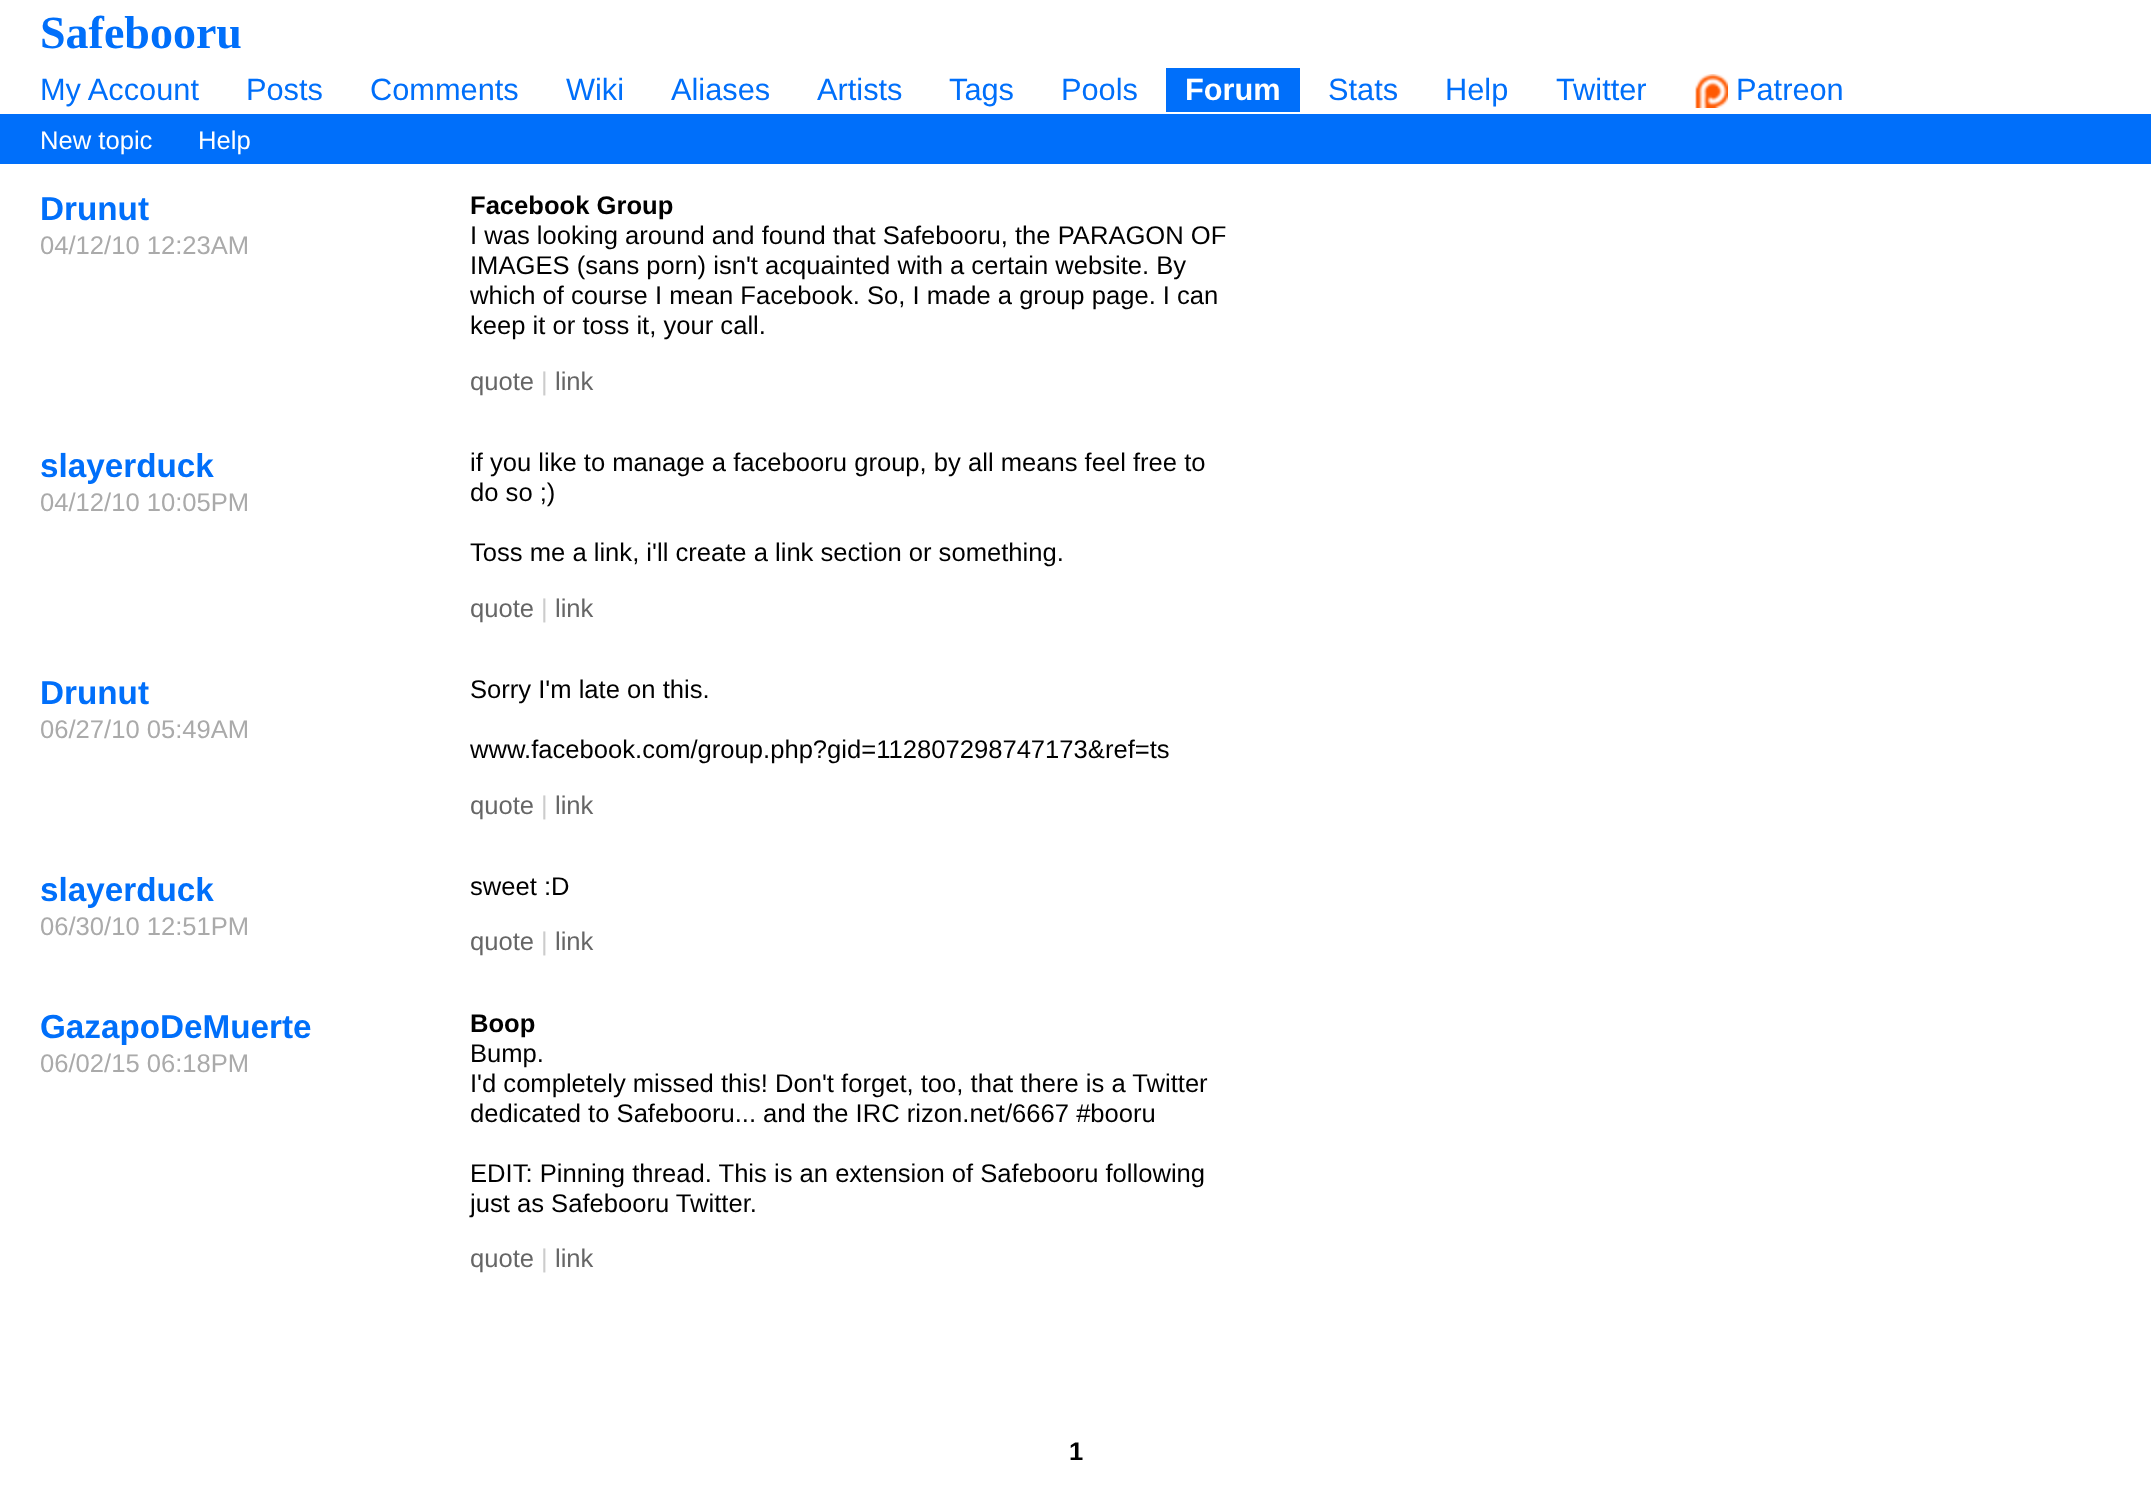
<svg xmlns="http://www.w3.org/2000/svg" width="2151" height="1501" viewBox="0 0 2151 1501">
  <rect width="100%" height="100%" fill="#ffffff"/>
  <text x="40" y="48" font-family="Liberation Serif" font-size="46" font-weight="bold" fill="#006ffa">Safebooru</text>
  <text x="40" y="100" font-family="Liberation Sans" font-size="30.75" fill="#006ffa">My Account</text>
  <text x="246" y="100" font-family="Liberation Sans" font-size="30.75" fill="#006ffa">Posts</text>
  <text x="370" y="100" font-family="Liberation Sans" font-size="30.75" fill="#006ffa">Comments</text>
  <text x="566" y="100" font-family="Liberation Sans" font-size="30.75" fill="#006ffa">Wiki</text>
  <text x="671" y="100" font-family="Liberation Sans" font-size="30.75" fill="#006ffa">Aliases</text>
  <text x="817" y="100" font-family="Liberation Sans" font-size="30.75" fill="#006ffa">Artists</text>
  <text x="949" y="100" font-family="Liberation Sans" font-size="30.75" fill="#006ffa">Tags</text>
  <text x="1061" y="100" font-family="Liberation Sans" font-size="30.75" fill="#006ffa">Pools</text>
  <rect x="1166" y="68" width="134" height="44" fill="#006ffa"/>
  <text x="1185" y="100" font-family="Liberation Sans" font-size="30.75" font-weight="bold" fill="#ffffff">Forum</text>
  <text x="1328" y="100" font-family="Liberation Sans" font-size="30.75" fill="#006ffa">Stats</text>
  <text x="1445" y="100" font-family="Liberation Sans" font-size="30.75" fill="#006ffa">Help</text>
  <text x="1556" y="100" font-family="Liberation Sans" font-size="30.75" fill="#006ffa">Twitter</text>
  <image x="1695" y="74" width="33" height="34" href="img1.png"/>
  <text x="1736" y="100" font-family="Liberation Sans" font-size="30.75" fill="#006ffa">Patreon</text>
  <rect x="0" y="114" width="2151" height="50" fill="#006ffa"/>
  <text x="40" y="149" font-family="Liberation Sans" font-size="25.6" fill="#ffffff">New topic</text>
  <text x="198" y="149" font-family="Liberation Sans" font-size="25.6" fill="#ffffff">Help</text>
  <text x="40" y="220" font-family="Liberation Sans" font-size="33.25" font-weight="bold" fill="#006ffa">Drunut</text>
  <text x="40" y="254" font-family="Liberation Sans" font-size="25.6" fill="#aaaaaa">04/12/10 12:23AM</text>
  <text x="470" y="214" font-family="Liberation Sans" font-size="25.6" font-weight="bold" fill="#000000">Facebook Group</text>
  <text x="470" y="244" font-family="Liberation Sans" font-size="25.6" fill="#000000">I was looking around and found that Safebooru, the PARAGON OF</text>
  <text x="470" y="274" font-family="Liberation Sans" font-size="25.6" fill="#000000">IMAGES (sans porn) isn't acquainted with a certain website. By</text>
  <text x="470" y="304" font-family="Liberation Sans" font-size="25.6" fill="#000000">which of course I mean Facebook. So, I made a group page. I can</text>
  <text x="470" y="334" font-family="Liberation Sans" font-size="25.6" fill="#000000">keep it or toss it, your call.</text>
  <text x="470" y="390" font-family="Liberation Sans" font-size="25.6" fill="#666666">quote</text>
  <text x="541" y="390" font-family="Liberation Sans" font-size="25.6" fill="#cccccc">|</text>
  <text x="555" y="390" font-family="Liberation Sans" font-size="25.6" fill="#666666">link</text>
  <text x="40" y="477" font-family="Liberation Sans" font-size="33.25" font-weight="bold" fill="#006ffa">slayerduck</text>
  <text x="40" y="511" font-family="Liberation Sans" font-size="25.6" fill="#aaaaaa">04/12/10 10:05PM</text>
  <text x="470" y="471" font-family="Liberation Sans" font-size="25.6" fill="#000000">if you like to manage a facebooru group, by all means feel free to</text>
  <text x="470" y="501" font-family="Liberation Sans" font-size="25.6" fill="#000000">do so ;)</text>
  <text x="470" y="561" font-family="Liberation Sans" font-size="25.6" fill="#000000">Toss me a link, i'll create a link section or something.</text>
  <text x="470" y="617" font-family="Liberation Sans" font-size="25.6" fill="#666666">quote</text>
  <text x="541" y="617" font-family="Liberation Sans" font-size="25.6" fill="#cccccc">|</text>
  <text x="555" y="617" font-family="Liberation Sans" font-size="25.6" fill="#666666">link</text>
  <text x="40" y="704" font-family="Liberation Sans" font-size="33.25" font-weight="bold" fill="#006ffa">Drunut</text>
  <text x="40" y="738" font-family="Liberation Sans" font-size="25.6" fill="#aaaaaa">06/27/10 05:49AM</text>
  <text x="470" y="698" font-family="Liberation Sans" font-size="25.6" fill="#000000">Sorry I'm late on this.</text>
  <text x="470" y="758" font-family="Liberation Sans" font-size="25.6" fill="#000000">www.facebook.com/group.php?gid=112807298747173&amp;ref=ts</text>
  <text x="470" y="814" font-family="Liberation Sans" font-size="25.6" fill="#666666">quote</text>
  <text x="541" y="814" font-family="Liberation Sans" font-size="25.6" fill="#cccccc">|</text>
  <text x="555" y="814" font-family="Liberation Sans" font-size="25.6" fill="#666666">link</text>
  <text x="40" y="901" font-family="Liberation Sans" font-size="33.25" font-weight="bold" fill="#006ffa">slayerduck</text>
  <text x="40" y="935" font-family="Liberation Sans" font-size="25.6" fill="#aaaaaa">06/30/10 12:51PM</text>
  <text x="470" y="895" font-family="Liberation Sans" font-size="25.6" fill="#000000">sweet :D</text>
  <text x="470" y="950" font-family="Liberation Sans" font-size="25.6" fill="#666666">quote</text>
  <text x="541" y="950" font-family="Liberation Sans" font-size="25.6" fill="#cccccc">|</text>
  <text x="555" y="950" font-family="Liberation Sans" font-size="25.6" fill="#666666">link</text>
  <text x="40" y="1038" font-family="Liberation Sans" font-size="33.25" font-weight="bold" fill="#006ffa">GazapoDeMuerte</text>
  <text x="40" y="1072" font-family="Liberation Sans" font-size="25.6" fill="#aaaaaa">06/02/15 06:18PM</text>
  <text x="470" y="1032" font-family="Liberation Sans" font-size="25.6" font-weight="bold" fill="#000000">Boop</text>
  <text x="470" y="1062" font-family="Liberation Sans" font-size="25.6" fill="#000000">Bump.</text>
  <text x="470" y="1092" font-family="Liberation Sans" font-size="25.6" fill="#000000">I'd completely missed this! Don't forget, too, that there is a Twitter</text>
  <text x="470" y="1122" font-family="Liberation Sans" font-size="25.6" fill="#000000">dedicated to Safebooru... and the IRC rizon.net/6667 #booru</text>
  <text x="470" y="1182" font-family="Liberation Sans" font-size="25.6" fill="#000000">EDIT: Pinning thread. This is an extension of Safebooru following</text>
  <text x="470" y="1212" font-family="Liberation Sans" font-size="25.6" fill="#000000">just as Safebooru Twitter.</text>
  <text x="470" y="1267" font-family="Liberation Sans" font-size="25.6" fill="#666666">quote</text>
  <text x="541" y="1267" font-family="Liberation Sans" font-size="25.6" fill="#cccccc">|</text>
  <text x="555" y="1267" font-family="Liberation Sans" font-size="25.6" fill="#666666">link</text>
  <text x="1069" y="1460" font-family="Liberation Sans" font-size="25.6" font-weight="bold" fill="#000000">1</text>
</svg>
